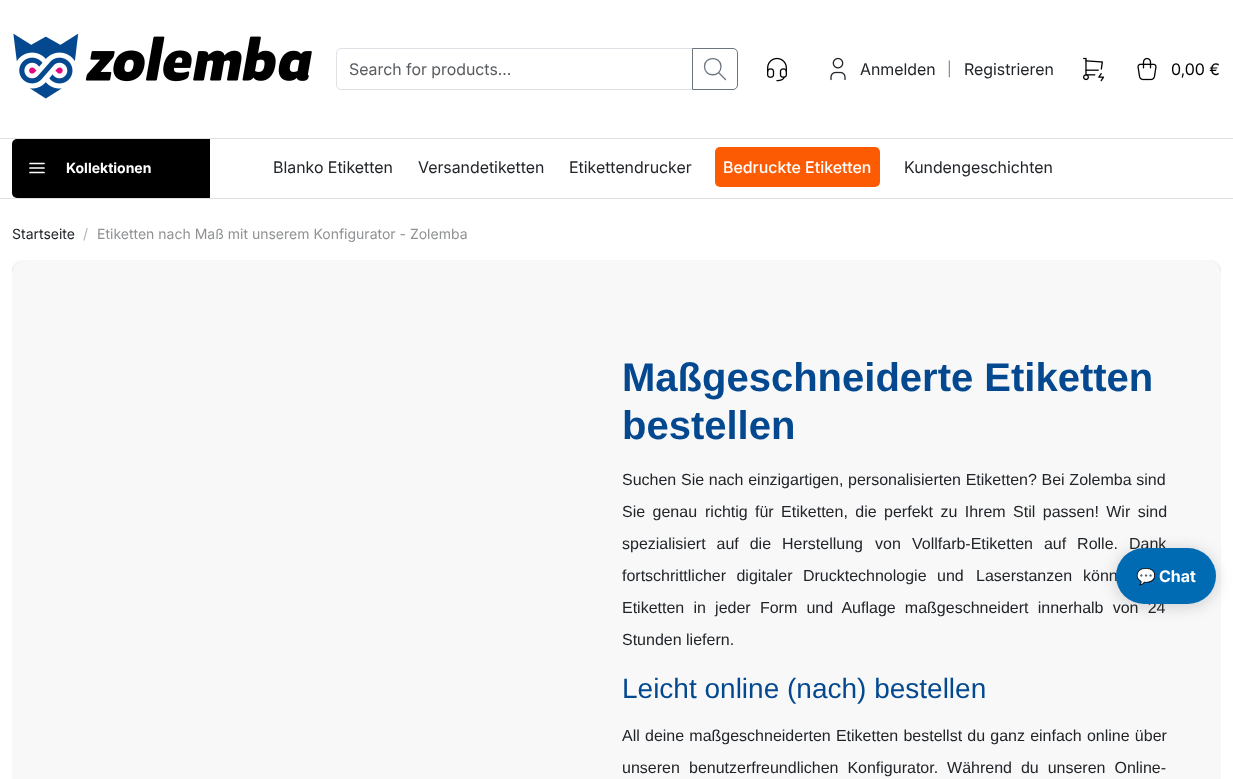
<svg xmlns="http://www.w3.org/2000/svg" width="1233" height="779" viewBox="0 0 1233 779">
  <defs>
    <clipPath id="clip1"><rect x="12" y="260" width="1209" height="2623"/></clipPath>
    <filter id="blur1" x="-50%" y="-200%" width="200%" height="500%"><feGaussianBlur stdDeviation="2"/></filter>
    <filter id="blur2" x="-50%" y="-200%" width="200%" height="500%"><feGaussianBlur stdDeviation="8"/></filter>
  </defs>
  <rect width="100%" height="100%" fill="#ffffff"/>
  <rect x="0" y="138" width="1233" height="1" fill="#dee2e6"/>
  <image x="13" y="33" width="299" height="66" href="img1.png"/>
  <path d="M341 48.5H692.5V89.5H341C338.5 89.5 336.5 87.5 336.5 85V53C336.5 50.5 338.5 48.5 341 48.5Z" fill="none" stroke="#dee2e6"/>
  <text x="349" y="75" font-family="Inter" font-size="16" fill="#595c5f">Search for products...</text>
  <path d="M692.5 48.5H733C735.5 48.5 737.5 50.5 737.5 53V85C737.5 87.5 735.5 89.5 733 89.5H692.5Z" fill="none" stroke="#6c757d"/>
  <path d="M704.5 66.5C704.5 77.5 721 77.5 721 66.5C721 56 704.5 56 704.5 66.5M725.5 79.5L718.5 72.5" fill="none" stroke="#6c757d" stroke-width="1.3" stroke-linecap="round" stroke-linejoin="round"/>
  <image x="767" y="57" width="20" height="25" href="img2.png"/>
  <image x="830" y="57" width="16" height="24" href="img3.png"/>
  <text x="860" y="75" font-family="Inter" font-size="16" fill="#212529">Anmelden</text>
  <text x="947" y="74" font-family="'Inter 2'" font-size="14" fill="#808080">|</text>
  <text x="964" y="75" font-family="Inter" font-size="16" fill="#212529">Registrieren</text>
  <image x="1083" y="57" width="22" height="25" href="img4.png"/>
  <image x="1137" y="57" width="20" height="24" href="img5.png"/>
  <text x="1171" y="75" font-family="Inter" font-size="16" fill="#000000">0,00 €</text>
  <rect x="0" y="198" width="1233" height="1" fill="#dee2e6"/>
  <path d="M37 139H210V198H37C23 198 12 187 12 173V164C12 150 23 139 37 139Z" fill="#000000"/>
  <rect x="12" y="139" width="198" height="59" rx="5" fill="#000000"/>
  <path d="M30 163.5H44M30 168H44M30 172.5H44" fill="none" stroke="#ffffff" stroke-width="1.7" stroke-linecap="round" stroke-linejoin="round"/>
  <text x="66" y="173" font-family="Inter" font-size="14" font-weight="bold" fill="#ffffff">Kollektionen</text>
  <text x="273" y="173" font-family="Inter" font-size="16" fill="#212529">Blanko Etiketten</text>
  <text x="418" y="173" font-family="Inter" font-size="16" fill="#212529">Versandetiketten</text>
  <text x="569" y="173" font-family="Inter" font-size="16" fill="#212529">Etikettendrucker</text>
  <rect x="715" y="147" width="165" height="40" rx="5" fill="#fd5b03"/>
  <text x="723" y="173" font-family="Inter" font-size="16" font-weight="500" fill="#ffffff">Bedruckte Etiketten</text>
  <text x="904" y="173" font-family="Inter" font-size="16" fill="#212529">Kundengeschichten</text>
  <text x="12" y="239" font-family="'Inter 2'" font-size="14" fill="#212529">Startseite</text>
  <text x="83" y="239" font-family="'Inter 2'" font-size="14" fill="#adb5bd">/</text>
  <text x="97" y="239" font-family="'Inter 2'" font-size="14" fill="#909294">Etiketten nach Maß mit unserem Konfigurator - Zolemba</text>
  <g clip-path="url(#clip1)">
    <rect x="12" y="262" width="1209" height="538" rx="15" fill="#000000" fill-opacity="0.3" filter="url(#blur1)"/>
  </g>
  <rect x="12" y="260" width="1209" height="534" rx="15" fill="#f8f8f8"/>
  <text x="622" y="391" font-family="Liberation Sans" font-size="40" font-weight="bold" fill="#044990">Maßgeschneiderte Etiketten</text>
  <text x="622" y="439" font-family="Liberation Sans" font-size="40" font-weight="bold" fill="#044990">bestellen</text>
  <text x="622" y="485" word-spacing="0.25" font-family="Liberation Sans" font-size="16" fill="#212529">Suchen Sie nach einzigartigen, personalisierten Etiketten? Bei Zolemba sind</text>
  <text x="622" y="517" word-spacing="3" font-family="Liberation Sans" font-size="16" fill="#212529">Sie genau</text>
  <text x="705" y="517" font-family="Liberation Sans" font-size="16" fill="#212529">richtig</text>
  <text x="755" y="517" word-spacing="3" font-family="Liberation Sans" font-size="16" fill="#212529">für Etiketten, die perfekt zu Ihrem Stil passen! Wir sind</text>
  <text x="622" y="549" word-spacing="6.5" font-family="Liberation Sans" font-size="16" fill="#212529">spezialisiert auf die Herstellung</text>
  <text x="875" y="549" font-family="Liberation Sans" font-size="16" fill="#212529">von</text>
  <text x="912" y="549" word-spacing="6.5" font-family="Liberation Sans" font-size="16" fill="#212529">Vollfarb-Etiketten auf Rolle. Dank</text>
  <text x="622" y="581" word-spacing="6" font-family="Liberation Sans" font-size="16" fill="#212529">fortschrittlicher digitaler Drucktechnologie und</text>
  <text x="976" y="581" font-family="Liberation Sans" font-size="16" fill="#212529">Laserstanzen</text>
  <text x="1083" y="581" word-spacing="6" font-family="Liberation Sans" font-size="16" fill="#212529">könn</text>
  <text x="622" y="613" word-spacing="4.75" font-family="Liberation Sans" font-size="16" fill="#212529">Etiketten in jeder Form und Auflage maßgeschneidert innerhalb von 24</text>
  <text x="622" y="645" font-family="Liberation Sans" font-size="16" fill="#212529">Stunden liefern.</text>
  <text x="622" y="698" font-family="Liberation Sans" font-size="28" fill="#044990">Leicht online (nach) bestellen</text>
  <text x="622" y="741" word-spacing="0.75" font-family="Liberation Sans" font-size="16" fill="#212529">All deine maßgeschneiderten Etiketten bestellst du ganz einfach online über</text>
  <text x="622" y="773" font-family="Liberation Sans" font-size="16" fill="#212529">unseren</text>
  <text x="689" y="773" word-spacing="4.5" font-family="Liberation Sans" font-size="16" fill="#212529">benutzerfreundlichen Konfigurator. Während du unseren Online-</text>
  <rect x="1116" y="550" width="100" height="56" rx="28" fill="#000000" fill-opacity="0.18" filter="url(#blur2)"/>
  <rect x="1116" y="548" width="100" height="56" rx="28" fill="#006bb3"/>
  <text x="1136" y="582" font-family="Noto Color Emoji" font-size="16" font-weight="bold" fill="#ffffff">💬</text>
  <text x="1159" y="582" font-family="Inter" font-size="16" font-weight="bold" fill="#ffffff">Chat</text>
</svg>
